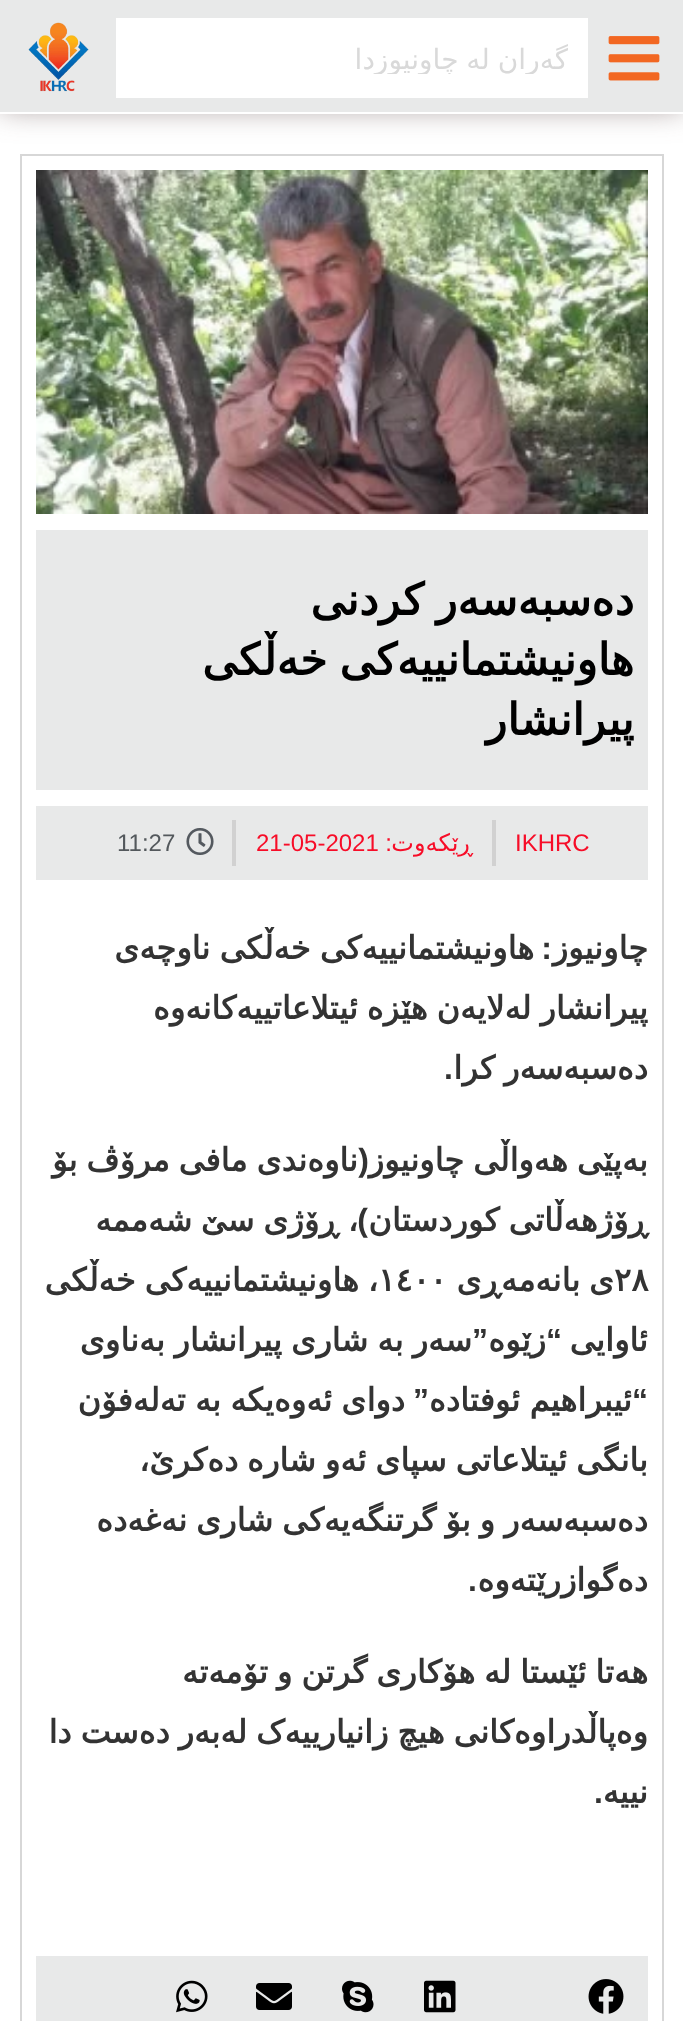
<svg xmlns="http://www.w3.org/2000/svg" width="683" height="2021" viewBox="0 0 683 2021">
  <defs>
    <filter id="blur1" x="-50%" y="-200%" width="200%" height="500%"><feGaussianBlur stdDeviation="15"/></filter>
    <clipPath id="clip1"><rect x="120" y="42" width="448" height="32"/></clipPath>
  </defs>
  <rect width="100%" height="100%" fill="#ffffff"/>
  <rect x="0" y="-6" width="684" height="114" rx="2" fill="#a29595" filter="url(#blur1)"/>
  <rect x="0" y="0" width="683" height="112" fill="#e8e9e9"/>
  <rect x="0" y="112" width="683" height="2" fill="#ffffff"/>
  <image x="608" y="36" width="52" height="45" href="img1.png"/>
  <rect x="116" y="18" width="472" height="80" fill="#ffffff"/>
  <g clip-path="url(#clip1)">
    <text x="568" y="69" word-spacing="-1" font-family="DejaVu Sans" font-size="28" direction="rtl" fill="#d9d9d9">گەران لە چاونیوزدا</text>
  </g>
  <image x="28" y="22" width="61" height="70" href="img2.png"/>
  <rect x="21" y="155" width="642" height="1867" fill="none" stroke="#d7d7d7" stroke-width="2"/>
  <image x="36" y="170" width="612" height="344" href="img3.png"/>
  <rect x="36" y="530" width="612" height="260" fill="#e8e9e9"/>
  <text x="634" y="615" word-spacing="-2" font-family="DejaVu Sans" font-size="44" font-weight="bold" direction="rtl" fill="#000000">دەسبەسەر کردنی</text>
  <text x="634" y="675" word-spacing="-2" font-family="DejaVu Sans" font-size="44" font-weight="bold" direction="rtl" fill="#000000">هاونیشتمانییەکی خەڵکی</text>
  <text x="634" y="735" font-family="DejaVu Sans" font-size="44" font-weight="bold" direction="rtl" fill="#000000">پیرانشار</text>
  <rect x="36" y="806" width="612" height="74" fill="#e8e9e9"/>
  <text x="515" y="851" font-family="Liberation Sans" font-size="24" fill="#f70d28">IKHRC</text>
  <rect x="492" y="820" width="4" height="46" fill="#d1d1d1"/>
  <text x="473" y="851" font-family="DejaVu Sans" font-size="24" direction="rtl" fill="#f70d28">ڕێکەوت</text>
  <text x="392" y="851" font-family="Liberation Sans" font-size="24" direction="rtl" fill="#f70d28">:</text>
  <text x="256" y="851" font-family="Liberation Sans" font-size="24" fill="#f70d28">21-05-2021</text>
  <rect x="232" y="820" width="4" height="46" fill="#d1d1d1"/>
  <image x="186" y="828" width="28" height="27" href="img4.png"/>
  <text x="117" y="851" font-family="Liberation Sans" font-size="24" fill="#53585c">11:27</text>
  <text x="648" y="959" font-family="DejaVu Sans" font-size="32" font-weight="bold" direction="rtl" fill="#333333">چاونیوز</text>
  <text x="552" y="959" font-family="Liberation Sans" font-size="32" font-weight="bold" direction="rtl" fill="#333333">:</text>
  <text x="534" y="959" word-spacing="-1" font-family="DejaVu Sans" font-size="32" font-weight="bold" direction="rtl" fill="#333333">هاونیشتمانییەکی خەڵکی ناوچەی</text>
  <text x="648" y="1019" word-spacing="-1.25" font-family="DejaVu Sans" font-size="32" font-weight="bold" direction="rtl" fill="#333333">پیرانشار لەلایەن هێزە ئیتلاعاتییەکانەوە</text>
  <text x="648" y="1079" word-spacing="-1.25" font-family="DejaVu Sans" font-size="32" font-weight="bold" direction="rtl" fill="#333333">دەسبەسەر کرا</text>
  <text x="453" y="1079" font-family="Liberation Sans" font-size="32" font-weight="bold" direction="rtl" fill="#333333">.</text>
  <text x="369" y="1171" font-family="Liberation Sans" font-size="32" font-weight="bold" direction="rtl" fill="#333333">(</text>
  <text x="648" y="1171" word-spacing="-1.25" font-family="DejaVu Sans" font-size="32" font-weight="bold" direction="rtl" fill="#333333">بەپێی هەواڵی چاونیوز</text>
  <text x="358" y="1171" word-spacing="-1.25" font-family="DejaVu Sans" font-size="32" font-weight="bold" direction="rtl" fill="#333333">ناوەندی مافی مرۆڤ بۆ</text>
  <text x="648" y="1231" word-spacing="-1.25" font-family="DejaVu Sans" font-size="32" font-weight="bold" direction="rtl" fill="#333333">ڕۆژهەڵاتی کوردستان</text>
  <text x="358" y="1231" word-spacing="-1.25" font-family="DejaVu Sans" font-size="32" font-weight="bold" direction="rtl" fill="#333333">، ڕۆژی سێ شەممە</text>
  <text x="368" y="1231" font-family="Liberation Sans" font-size="32" font-weight="bold" direction="rtl" fill="#333333">)</text>
  <text x="614" y="1291" font-family="DejaVu Sans" font-size="32" font-weight="bold" fill="#333333">٢٨</text>
  <text x="614" y="1291" word-spacing="-1.25" font-family="DejaVu Sans" font-size="32" font-weight="bold" direction="rtl" fill="#333333">ی بانەمەڕی</text>
  <text x="378" y="1291" font-family="DejaVu Sans" font-size="32" font-weight="bold" fill="#333333">١٤٠٠</text>
  <text x="378" y="1291" word-spacing="-1.25" font-family="DejaVu Sans" font-size="32" font-weight="bold" direction="rtl" fill="#333333">، هاونیشتمانییەکی خەڵکی</text>
  <text x="648" y="1351" font-family="DejaVu Sans" font-size="32" font-weight="bold" direction="rtl" fill="#333333">ئاوایی</text>
  <text x="562" y="1351" font-family="Liberation Sans" font-size="32" font-weight="bold" direction="rtl" fill="#333333">“</text>
  <text x="546" y="1351" font-family="DejaVu Sans" font-size="32" font-weight="bold" direction="rtl" fill="#333333">زێوە</text>
  <text x="488" y="1351" font-family="Liberation Sans" font-size="32" font-weight="bold" direction="rtl" fill="#333333">”</text>
  <text x="472" y="1351" word-spacing="-1" font-family="DejaVu Sans" font-size="32" font-weight="bold" direction="rtl" fill="#333333">سەر بە شاری پیرانشار بەناوی</text>
  <text x="648" y="1411" font-family="Liberation Sans" font-size="32" font-weight="bold" direction="rtl" fill="#333333">“</text>
  <text x="632" y="1411" word-spacing="-1" font-family="DejaVu Sans" font-size="32" font-weight="bold" direction="rtl" fill="#333333">ئیبراهیم ئوفتادە</text>
  <text x="429" y="1411" font-family="Liberation Sans" font-size="32" font-weight="bold" direction="rtl" fill="#333333">”</text>
  <text x="405" y="1411" word-spacing="-1" font-family="DejaVu Sans" font-size="32" font-weight="bold" direction="rtl" fill="#333333">دوای ئەوەیکە بە تەلەفۆن</text>
  <text x="648" y="1471" word-spacing="-1.25" font-family="DejaVu Sans" font-size="32" font-weight="bold" direction="rtl" fill="#333333">بانگی ئیتلاعاتی سپای ئەو شارە دەکرێ،</text>
  <text x="648" y="1531" word-spacing="-1.25" font-family="DejaVu Sans" font-size="32" font-weight="bold" direction="rtl" fill="#333333">دەسبەسەر و بۆ گرتنگەیەکی شاری نەغەدە</text>
  <text x="648" y="1591" font-family="DejaVu Sans" font-size="32" font-weight="bold" direction="rtl" fill="#333333">دەگوازرێتەوە</text>
  <text x="477" y="1591" font-family="Liberation Sans" font-size="32" font-weight="bold" direction="rtl" fill="#333333">.</text>
  <text x="648" y="1683" word-spacing="-1.25" font-family="DejaVu Sans" font-size="32" font-weight="bold" direction="rtl" fill="#333333">هەتا ئێستا لە هۆکاری گرتن و تۆمەتە</text>
  <text x="648" y="1743" word-spacing="-1.25" font-family="DejaVu Sans" font-size="32" font-weight="bold" direction="rtl" fill="#333333">وەپاڵدراوەکانی هیچ زانیارییەک لەبەر دەست دا</text>
  <text x="648" y="1803" font-family="DejaVu Sans" font-size="32" font-weight="bold" direction="rtl" fill="#333333">نییە</text>
  <text x="603" y="1803" font-family="Liberation Sans" font-size="32" font-weight="bold" direction="rtl" fill="#333333">.</text>
  <rect x="36" y="1956" width="612" height="65" fill="#e8e9e9"/>
  <image x="588" y="1979" width="36" height="35" href="img5.png"/>
  <image x="424" y="1980" width="32" height="33" href="img6.png"/>
  <image x="342" y="1980" width="32" height="33" href="img7.png"/>
  <image x="256" y="1983" width="36" height="27" href="img8.png"/>
  <image x="176" y="1980" width="32" height="33" href="img9.png"/>
</svg>
